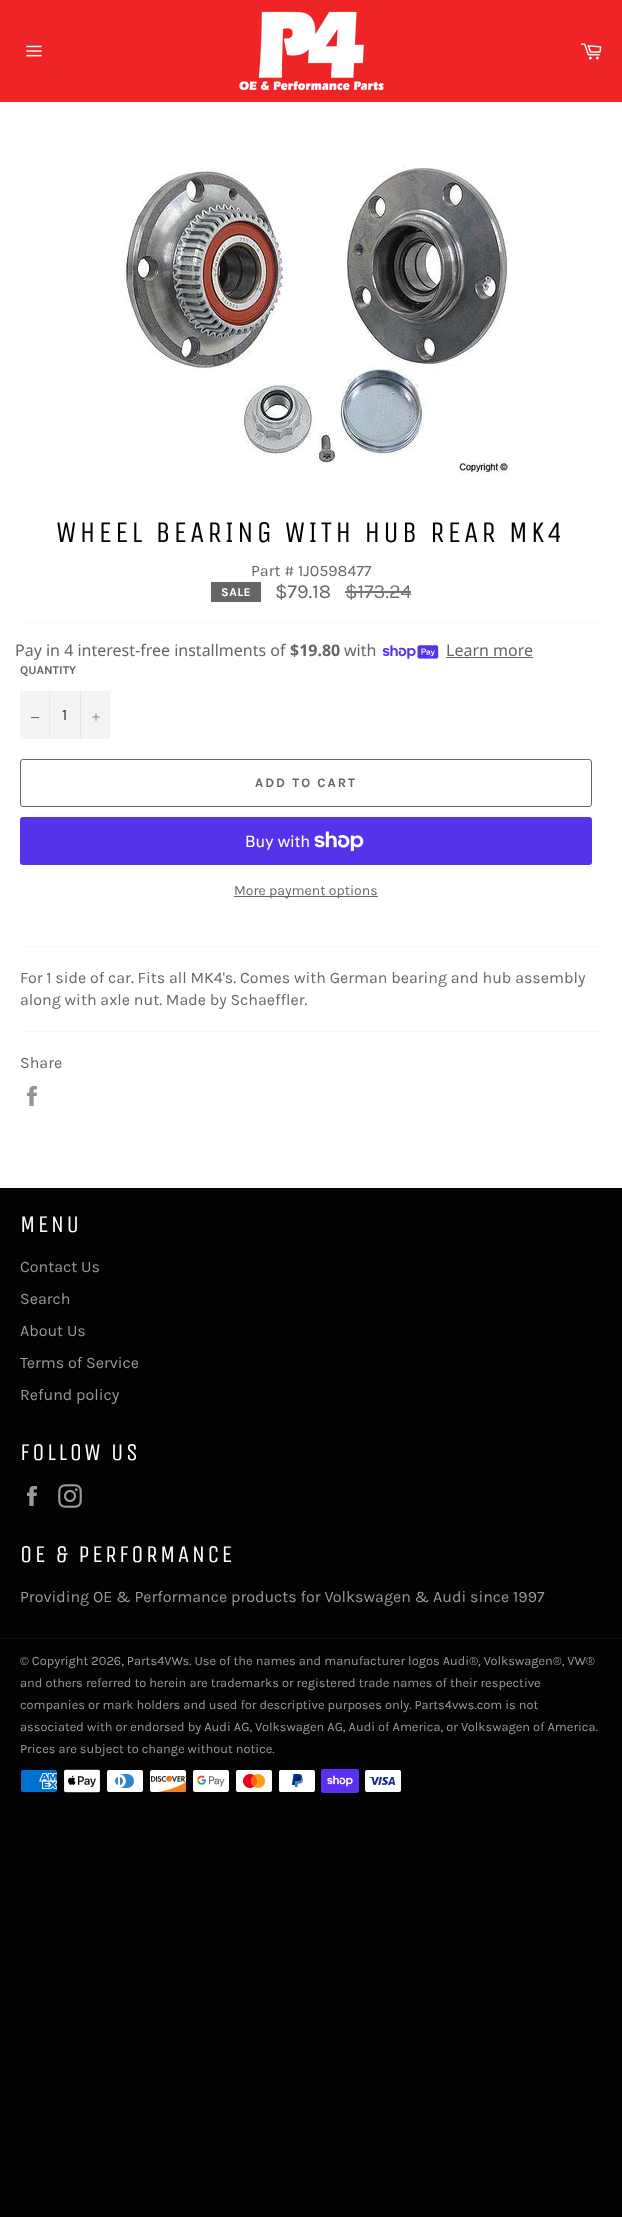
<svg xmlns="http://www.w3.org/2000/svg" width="622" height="2217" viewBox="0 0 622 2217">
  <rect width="100%" height="100%" fill="#030303"/>
  <rect x="0" y="0" width="622" height="102" fill="#ee2427"/>
  <image x="26" y="45" width="16" height="12" href="img1.png"/>
  <image x="239" y="11" width="145" height="80" href="img2.png"/>
  <image x="580" y="43" width="22" height="17" href="img3.png"/>
  <rect x="0" y="102" width="622" height="1086" fill="#ffffff"/>
  <image x="124" y="164" width="386" height="312" href="img4.png"/>
  <text x="56" y="542" font-family="Unica One" font-size="30" letter-spacing="3" fill="#030303">WHEEL BEARING WITH HUB REAR MK4</text>
  <text x="251" y="576" font-family="Karla" font-size="16" fill="#666666">Part # 1J0598477</text>
  <rect x="211" y="582" width="50" height="20" fill="#666666"/>
  <text x="221" y="596" font-family="Karla" font-size="12" font-weight="bold" letter-spacing="0.5" fill="#ffffff">SALE</text>
  <text x="275" y="598" font-family="Karla" font-size="20" fill="#666666">$79.18</text>
  <text x="345" y="598" font-family="Karla" font-size="20" fill="#737373">$173.24</text>
  <rect x="345" y="591" width="66" height="2" fill="#737373"/>
  <rect x="20" y="622" width="582" height="1" fill="#f7f7f7"/>
  <text x="15" y="656" font-family="Noto Sans" font-size="16" fill="#666666">Pay in 4 interest-free installments of</text>
  <text x="290" y="656" font-family="Noto Sans" font-size="16" font-weight="bold" fill="#666666">$19.80</text>
  <text x="344" y="656" font-family="Noto Sans" font-size="16" fill="#666666">with</text>
  <image x="382" y="645" width="57" height="14" href="img5.png"/>
  <text x="446" y="656" font-family="Noto Sans" font-size="16" fill="#666666">Learn more</text>
  <rect x="446" y="657" width="87" height="1" fill="#666666"/>
  <text x="20" y="674" font-family="Karla" font-size="12" font-weight="bold" fill="#666666">QUANTITY</text>
  <rect x="20" y="691" width="90" height="48" fill="#f4f4f4"/>
  <rect x="49" y="691" width="1" height="48" fill="#e7e7e7"/>
  <rect x="31" y="717" width="8" height="1" fill="#666666"/>
  <text x="62" y="720" font-family="Karla" font-size="16" fill="#333333">1</text>
  <rect x="80" y="691" width="1" height="48" fill="#e7e7e7"/>
  <image x="92" y="713" width="8" height="8" href="img6.png"/>
  <rect x="20.5" y="759.5" width="571" height="47" rx="2.5" fill="none" stroke="#666666"/>
  <text x="255" y="787" font-family="Karla" font-size="13" font-weight="bold" letter-spacing="2" fill="#666666">ADD TO CART</text>
  <rect x="20" y="817" width="572" height="48" rx="3" fill="#5433eb"/>
  <text x="245" y="847" font-family="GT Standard" font-size="16" fill="#ffffff">Buy with</text>
  <image x="314" y="831" width="50" height="20" href="img7.png"/>
  <rect x="234" y="896" width="144" height="1" fill="#666666"/>
  <text x="234" y="895" font-family="Karla" font-size="14" fill="#666666">More payment options</text>
  <rect x="20" y="946" width="582" height="1" fill="#f7f7f7"/>
  <text x="20" y="983" font-family="Karla" font-size="16" fill="#666666">For 1 side of car. Fits all MK4's. Comes with German bearing and hub assembly</text>
  <text x="20" y="1005" font-family="Karla" font-size="16" fill="#666666">along with axle nut. Made by Schaeffler.</text>
  <rect x="20" y="1031" width="582" height="1" fill="#f7f7f7"/>
  <text x="20" y="1068" font-family="Karla" font-size="16" fill="#666666">Share</text>
  <image x="27" y="1086" width="10" height="20" href="img8.png"/>
  <text x="20" y="1232" font-family="Unica One" font-size="24" letter-spacing="2.4" fill="#ffffff">MENU</text>
  <text x="20" y="1272" font-family="Karla" font-size="16" fill="#9a9a9a">Contact Us</text>
  <text x="20" y="1304" font-family="Karla" font-size="16" fill="#9a9a9a">Search</text>
  <text x="20" y="1336" font-family="Karla" font-size="16" fill="#9a9a9a">About Us</text>
  <text x="20" y="1368" font-family="Karla" font-size="16" fill="#9a9a9a">Terms of Service</text>
  <text x="20" y="1400" font-family="Karla" font-size="16" fill="#9a9a9a">Refund policy</text>
  <text x="20" y="1460" font-family="Unica One" font-size="24" letter-spacing="2.4" fill="#ffffff">FOLLOW US</text>
  <image x="27" y="1486" width="10" height="20" href="img9.png"/>
  <image x="58" y="1484" width="24" height="24" href="img10.png"/>
  <text x="20" y="1562" font-family="Unica One" font-size="24" letter-spacing="2.4" fill="#ffffff">OE &amp; PERFORMANCE</text>
  <text x="20" y="1602" font-family="Karla" font-size="16" fill="#9a9a9a">Providing OE &amp; Performance products for Volkswagen &amp; Audi since 1997</text>
  <rect x="0" y="1638" width="622" height="1" fill="#101010"/>
  <text x="20" y="1665" font-family="Karla" font-size="12.8" fill="#9a9a9a">© Copyright 2026, Parts4VWs. Use of the names and manufacturer logos Audi®, Volkswagen®, VW®</text>
  <text x="20" y="1687" font-family="Karla" font-size="12.8" fill="#9a9a9a">and others referred to herein are trademarks or registered trade names of their respective</text>
  <text x="20" y="1709" font-family="Karla" font-size="12.8" fill="#9a9a9a">companies or mark holders and used for descriptive purposes only. Parts4vws.com is not</text>
  <text x="20" y="1731" font-family="Karla" font-size="12.8" fill="#9a9a9a">associated with or endorsed by Audi AG, Volkswagen AG, Audi of America, or Volkswagen of America.</text>
  <text x="20" y="1753" font-family="Karla" font-size="12.8" fill="#9a9a9a">Prices are subject to change without notice.</text>
  <image x="21" y="1770" width="36" height="22" href="img11.png"/>
  <image x="64" y="1769" width="36" height="24" href="img12.png"/>
  <image x="107" y="1770" width="36" height="22" href="img13.png"/>
  <image x="150" y="1770" width="37" height="22" href="img14.png"/>
  <image x="193" y="1770" width="36" height="22" href="img15.png"/>
  <image x="236" y="1770" width="36" height="22" href="img16.png"/>
  <image x="279" y="1770" width="36" height="22" href="img17.png"/>
  <image x="321" y="1769" width="38" height="24" href="img18.png"/>
  <image x="365" y="1770" width="36" height="22" href="img19.png"/>
</svg>
